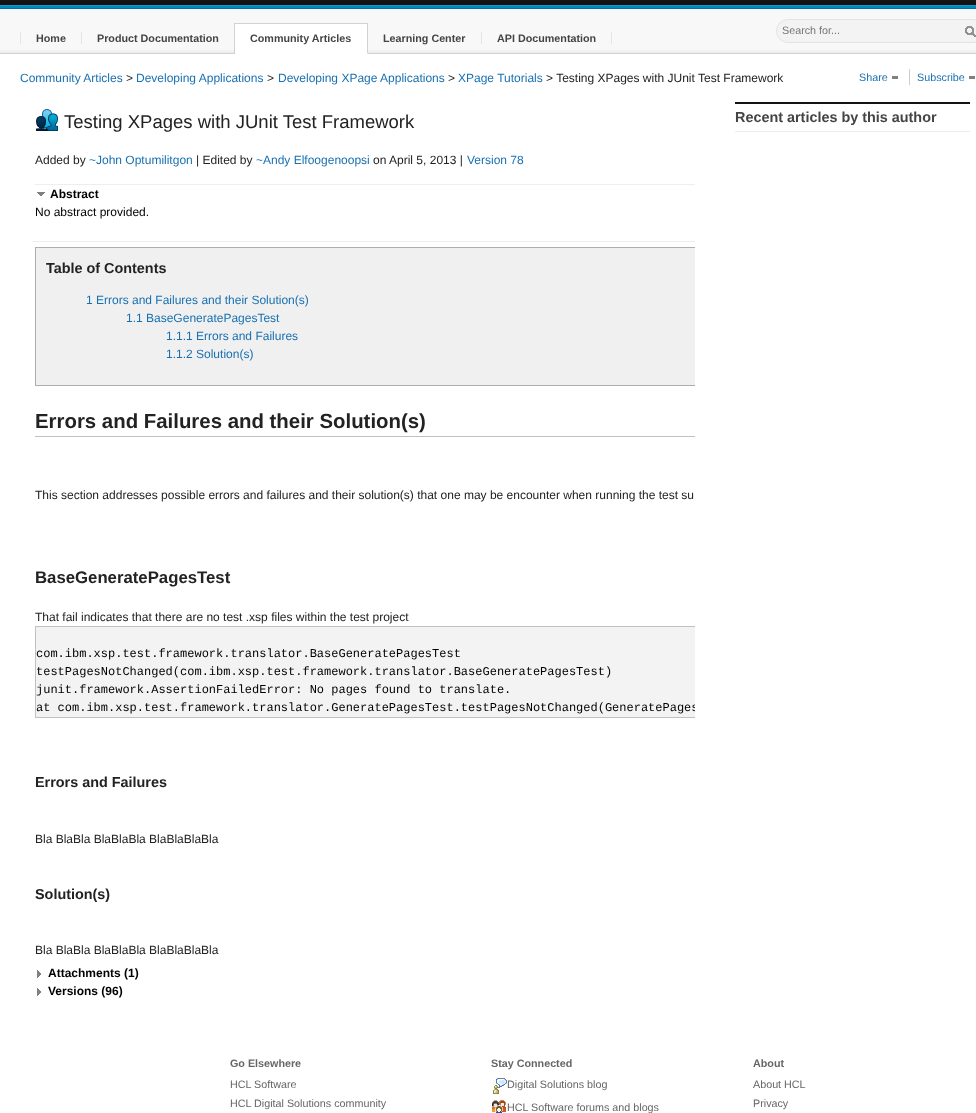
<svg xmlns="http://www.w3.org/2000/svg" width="976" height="1113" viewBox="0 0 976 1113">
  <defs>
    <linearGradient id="g1" gradientUnits="userSpaceOnUse" x1="0" y1="-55" x2="0" y2="5"><stop offset="0" stop-color="#474747"/><stop offset="1" stop-color="#111111"/></linearGradient>
    <linearGradient id="g2" gradientUnits="userSpaceOnUse" x1="0" y1="9" x2="0" y2="53"><stop offset="0" stop-color="#f8f8f8"/><stop offset="0.92" stop-color="#f8f8f8"/><stop offset="1" stop-color="#eaeaea"/></linearGradient>
    <clipPath id="clip1"><rect x="5" y="102" width="690" height="938"/></clipPath>
    <clipPath id="clip2"><rect x="36" y="627" width="659" height="90"/></clipPath>
  </defs>
  <rect width="100%" height="100%" fill="#ffffff"/>
  <rect x="0" y="6" width="976" height="2" fill="#008abf"/>
  <rect x="0" y="8" width="976" height="1" fill="#0075a3"/>
  <rect x="0" y="0" width="976" height="5" fill="url(#g1)"/>
  <rect x="0" y="5" width="976" height="1" fill="#1a96c6"/>
  <rect x="0" y="9" width="976" height="44" fill="url(#g2)"/>
  <rect x="0" y="53" width="976" height="1" fill="#d2d2d2"/>
  <rect x="776.5" y="19.5" width="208" height="23" rx="11.5" fill="#f3f3f3" stroke="#e3e3e3"/>
  <text x="782" y="34" font-family="Liberation Sans" font-size="10.75" fill="#757575">Search for...</text>
  <image x="965" y="26" width="11" height="11" href="img1.png"/>
  <text x="36" y="42" font-family="Liberation Sans" font-size="10.75" font-weight="bold" fill="#444444">Home</text>
  <rect x="81" y="32" width="1" height="12" fill="#e5e5e5"/>
  <rect x="20" y="32" width="1" height="12" fill="#e5e5e5"/>
  <text x="97" y="42" font-family="Liberation Sans" font-size="10.75" font-weight="bold" fill="#444444">Product Documentation</text>
  <rect x="235" y="24" width="132" height="29" fill="#ffffff"/>
  <rect x="234" y="23" width="134" height="1" fill="#d2d2d2"/>
  <rect x="234" y="53" width="134" height="1" fill="#ffffff"/>
  <rect x="234" y="23" width="1" height="31" fill="#d2d2d2"/>
  <text x="250" y="42" font-family="Liberation Sans" font-size="10.75" font-weight="bold" fill="#444444">Community Articles</text>
  <path d="M367 54V23L368 24V53Z" fill="#d2d2d2"/>
  <text x="383" y="42" font-family="Liberation Sans" font-size="10.75" font-weight="bold" fill="#444444">Learning Center</text>
  <rect x="481" y="32" width="1" height="12" fill="#e5e5e5"/>
  <text x="497" y="42" font-family="Liberation Sans" font-size="10.75" font-weight="bold" fill="#444444">API Documentation</text>
  <rect x="611" y="32" width="1" height="12" fill="#e5e5e5"/>
  <text x="20" y="82" font-family="Liberation Sans" font-size="12" fill="#1970b0">Community Articles</text>
  <text x="126" y="82" font-family="Liberation Sans" font-size="12" fill="#222222">&gt;</text>
  <text x="136" y="82" font-family="Liberation Sans" font-size="12" fill="#1970b0">Developing Applications</text>
  <text x="267" y="82" font-family="Liberation Sans" font-size="12" fill="#222222">&gt;</text>
  <text x="278" y="82" font-family="Liberation Sans" font-size="12" fill="#1970b0">Developing XPage Applications</text>
  <text x="448" y="82" font-family="Liberation Sans" font-size="12" fill="#222222">&gt;</text>
  <text x="458" y="82" font-family="Liberation Sans" font-size="12" fill="#1970b0">XPage Tutorials</text>
  <text x="546" y="82" font-family="Liberation Sans" font-size="12" fill="#222222">&gt; Testing XPages with JUnit Test Framework</text>
  <text x="859" y="81" font-family="Liberation Sans" font-size="10.75" fill="#1970b0">Share</text>
  <rect x="892" y="76" width="6" height="3" fill="#808080"/>
  <rect x="909" y="69" width="1" height="16" fill="#cccccc"/>
  <text x="917" y="81" font-family="Liberation Sans" font-size="10.75" fill="#1970b0">Subscribe</text>
  <rect x="969" y="76" width="6" height="3" fill="#808080"/>
  <image x="36" y="109" width="22" height="22" href="img2.png"/>
  <text x="64" y="128" font-family="Liberation Sans" font-size="18.5" fill="#222222">Testing XPages with JUnit Test Framework</text>
  <text x="35" y="164" font-family="Liberation Sans" font-size="12" fill="#222222">Added by</text>
  <text x="89" y="164" font-family="Liberation Sans" font-size="12" fill="#1970b0">~John Optumilitgon</text>
  <text x="196" y="164" font-family="Liberation Sans" font-size="12" fill="#222222">| Edited by</text>
  <text x="256" y="164" font-family="Liberation Sans" font-size="12" fill="#1970b0">~Andy Elfoogenoopsi</text>
  <text x="373" y="164" font-family="Liberation Sans" font-size="12" fill="#222222">on April 5, 2013 |</text>
  <text x="467" y="164" font-family="Liberation Sans" font-size="12" fill="#1970b0">Version 78</text>
  <rect x="35" y="184" width="660" height="1" fill="#eeeeee"/>
  <image x="37" y="192" width="8" height="4" href="img3.png"/>
  <text x="50" y="198" font-family="Liberation Sans" font-size="12" font-weight="bold" fill="#000000">Abstract</text>
  <text x="35" y="216" font-family="Liberation Sans" font-size="12" fill="#000000">No abstract provided.</text>
  <rect x="33" y="241" width="662" height="1" fill="#eeeeee"/>
  <rect x="36" y="248" width="659" height="137" fill="#f0f0f0"/>
  <g clip-path="url(#clip1)">
    <rect x="35.5" y="247.5" width="764" height="138" fill="none" stroke="#adadad"/>
  </g>
  <text x="46" y="273" font-family="Liberation Sans" font-size="14.4" font-weight="bold" fill="#222222">Table of Contents</text>
  <text x="86" y="304" font-family="Liberation Sans" font-size="12" fill="#1970b0">1 Errors and Failures and their Solution(s)</text>
  <text x="126" y="322" font-family="Liberation Sans" font-size="12" fill="#1970b0">1.1 BaseGeneratePagesTest</text>
  <text x="166" y="340" font-family="Liberation Sans" font-size="12" fill="#1970b0">1.1.1 Errors and Failures</text>
  <text x="166" y="358" font-family="Liberation Sans" font-size="12" fill="#1970b0">1.1.2 Solution(s)</text>
  <rect x="35" y="436" width="660" height="1" fill="#c0c0c0"/>
  <text x="35" y="428" font-family="Liberation Sans" font-size="20.4" font-weight="bold" fill="#222222">Errors and Failures and their Solution(s)</text>
  <text x="35" y="499" font-family="Liberation Sans" font-size="12" fill="#222222">This section addresses possible errors and failures and their solution(s) that one may be encounter when running the test su</text>
  <text x="35" y="583" font-family="Liberation Sans" font-size="16.75" font-weight="bold" fill="#222222">BaseGeneratePagesTest</text>
  <text x="35" y="621" font-family="Liberation Sans" font-size="12" fill="#222222">That fail indicates that there are no test .xsp files within the test project</text>
  <g clip-path="url(#clip1)">
    <rect x="35.5" y="626.5" width="764" height="91" fill="none" stroke="#c0c0c0"/>
  </g>
  <rect x="36" y="627" width="659" height="90" fill="#f3f3f3"/>
  <text x="36" y="657" font-family="Liberation Mono" font-size="12" fill="#000000">com.ibm.xsp.test.framework.translator.BaseGeneratePagesTest</text>
  <text x="36" y="675" font-family="Liberation Mono" font-size="12" fill="#000000">testPagesNotChanged(com.ibm.xsp.test.framework.translator.BaseGeneratePagesTest)</text>
  <text x="36" y="693" font-family="Liberation Mono" font-size="12" fill="#000000">junit.framework.AssertionFailedError: No pages found to translate.</text>
  <g clip-path="url(#clip2)">
    <text x="36" y="711" font-family="Liberation Mono" font-size="12" fill="#000000">at com.ibm.xsp.test.framework.translator.GeneratePagesTest.testPagesNotChanged(GeneratePages</text>
  </g>
  <text x="35" y="787" font-family="Liberation Sans" font-size="14.4" font-weight="bold" fill="#222222">Errors and Failures</text>
  <text x="35" y="843" font-family="Liberation Sans" font-size="12" fill="#222222">Bla BlaBla BlaBlaBla BlaBlaBlaBla</text>
  <text x="35" y="899" font-family="Liberation Sans" font-size="14.4" font-weight="bold" fill="#222222">Solution(s)</text>
  <text x="35" y="954" font-family="Liberation Sans" font-size="12" fill="#222222">Bla BlaBla BlaBlaBla BlaBlaBlaBla</text>
  <image x="37" y="970" width="4" height="8" href="img4.png"/>
  <text x="48" y="977" font-family="Liberation Sans" font-size="12" font-weight="bold" fill="#000000">Attachments (1)</text>
  <image x="37" y="988" width="4" height="8" href="img4.png"/>
  <text x="48" y="995" font-family="Liberation Sans" font-size="12" font-weight="bold" fill="#000000">Versions (96)</text>
  <rect x="735" y="102" width="235" height="2" fill="#141414"/>
  <rect x="735" y="131" width="235" height="1" fill="#ededed"/>
  <text x="735" y="122" font-family="Liberation Sans" font-size="14.4" font-weight="bold" fill="#444444">Recent articles by this author</text>
  <text x="230" y="1067" font-family="Liberation Sans" font-size="10.75" font-weight="bold" fill="#666666">Go Elsewhere</text>
  <text x="491" y="1067" font-family="Liberation Sans" font-size="10.75" font-weight="bold" fill="#666666">Stay Connected</text>
  <text x="753" y="1067" font-family="Liberation Sans" font-size="10.75" font-weight="bold" fill="#666666">About</text>
  <text x="230" y="1088" font-family="Liberation Sans" font-size="10.75" fill="#666666">HCL Software</text>
  <text x="230" y="1107" font-family="Liberation Sans" font-size="10.75" fill="#666666">HCL Digital Solutions community</text>
  <image x="493" y="1078" width="14" height="16" href="img5.png"/>
  <text x="507" y="1088" font-family="Liberation Sans" font-size="10.75" fill="#666666">Digital Solutions blog</text>
  <image x="492" y="1100" width="14" height="13" href="img6.png"/>
  <text x="507" y="1111" font-family="Liberation Sans" font-size="10.75" fill="#666666">HCL Software forums and blogs</text>
  <text x="753" y="1088" font-family="Liberation Sans" font-size="10.75" fill="#666666">About HCL</text>
  <text x="753" y="1107" font-family="Liberation Sans" font-size="10.75" fill="#666666">Privacy</text>
</svg>
